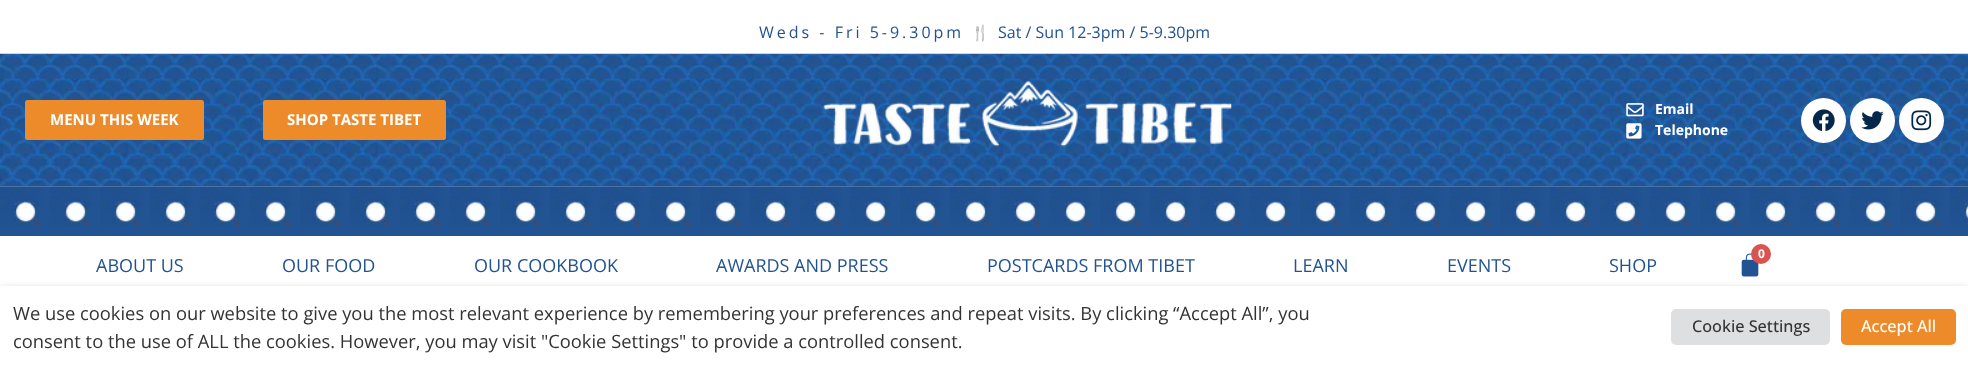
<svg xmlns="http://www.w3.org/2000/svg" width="1968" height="366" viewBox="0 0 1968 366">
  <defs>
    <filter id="blur1" x="-50%" y="-200%" width="200%" height="500%"><feGaussianBlur stdDeviation="6"/></filter>
  </defs>
  <rect width="100%" height="100%" fill="#ffffff"/>
  <text x="759" y="38" font-family="Open Sans" font-size="16" letter-spacing="3" fill="#215392">Weds - Fri 5-9.30pm</text>
  <text x="971" y="38" font-family="Noto Color Emoji" font-size="15" fill="#215392">🍴</text>
  <text x="998" y="38" font-family="Open Sans" font-size="16" fill="#215392">Sat / Sun 12-3pm / 5-9.30pm</text>
  <image x="0" y="53" width="1968" height="134" href="img1.png"/>
  <rect x="25" y="100" width="179" height="40" rx="2.5" fill="#ed8b2a"/>
  <text x="50" y="125" font-family="Open Sans" font-size="15" font-weight="bold" fill="#ffffff">MENU THIS WEEK</text>
  <rect x="263" y="100" width="183" height="40" rx="2.5" fill="#ed8b2a"/>
  <text x="287" y="125" font-family="Open Sans" font-size="15" font-weight="bold" fill="#ffffff">SHOP TASTE TIBET</text>
  <image x="823" y="80" width="409" height="67" href="img2.png"/>
  <image x="1626" y="103" width="18" height="14" href="img3.png"/>
  <text x="1655" y="114" font-family="Open Sans" font-size="14" font-weight="bold" fill="#ffffff">Email</text>
  <image x="1626" y="123" width="16" height="16" href="img4.png"/>
  <text x="1655" y="135" font-family="Open Sans" font-size="14" font-weight="bold" fill="#ffffff">Telephone</text>
  <circle cx="1823.5" cy="120.5" r="22.5" fill="#ffffff"/>
  <image x="1812" y="109" width="23" height="22" href="img5.png"/>
  <circle cx="1872.5" cy="120.5" r="22.5" fill="#ffffff"/>
  <image x="1861" y="111" width="23" height="19" href="img6.png"/>
  <circle cx="1921.5" cy="120.5" r="22.5" fill="#ffffff"/>
  <image x="1911" y="110" width="21" height="21" href="img7.png"/>
  <image x="0" y="186" width="1968" height="50" href="img8.png"/>
  <image x="1741" y="253" width="18" height="24" href="img9.png"/>
  <circle cx="1761" cy="254" r="10" fill="#d9534f"/>
  <text x="1758" y="258" font-family="Open Sans" font-size="12" font-weight="bold" fill="#ffffff">0</text>
  <text x="96" y="272" font-family="Open Sans" font-size="18" fill="#215392">ABOUT US</text>
  <text x="282" y="272" font-family="Open Sans" font-size="18" fill="#215392">OUR FOOD</text>
  <text x="474" y="272" font-family="Open Sans" font-size="18" fill="#215392">OUR COOKBOOK</text>
  <text x="716" y="272" font-family="Open Sans" font-size="18" fill="#215392">AWARDS AND PRESS</text>
  <text x="987" y="272" font-family="Open Sans" font-size="18" fill="#215392">POSTCARDS FROM TIBET</text>
  <text x="1293" y="272" font-family="Open Sans" font-size="18" fill="#215392">LEARN</text>
  <text x="1447" y="272" font-family="Open Sans" font-size="18" fill="#215392">EVENTS</text>
  <text x="1609" y="272" font-family="Open Sans" font-size="18" fill="#215392">SHOP</text>
  <rect x="0" y="293" width="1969" height="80" fill="#000000" fill-opacity="0.5" filter="url(#blur1)"/>
  <rect x="0" y="286" width="1968" height="80" fill="#ffffff"/>
  <text x="13" y="320" font-family="Open Sans" font-size="18.33" fill="#333333">We use cookies on our website to give you the most relevant experience by remembering your preferences and repeat visits. By clicking “Accept All”, you</text>
  <text x="13" y="348" font-family="Open Sans" font-size="18.33" fill="#333333">consent to the use of ALL the cookies. However, you may visit "Cookie Settings" to provide a controlled consent.</text>
  <rect x="1671" y="309" width="159" height="36" rx="5" fill="#dedfe0"/>
  <text x="1692" y="332" font-family="Open Sans" font-size="16.25" font-weight="500" fill="#333333">Cookie Settings</text>
  <rect x="1841" y="309" width="115" height="36" rx="5" fill="#ed8b2a"/>
  <text x="1861" y="332" font-family="Open Sans" font-size="16.25" font-weight="500" fill="#ffffff">Accept All</text>
</svg>
